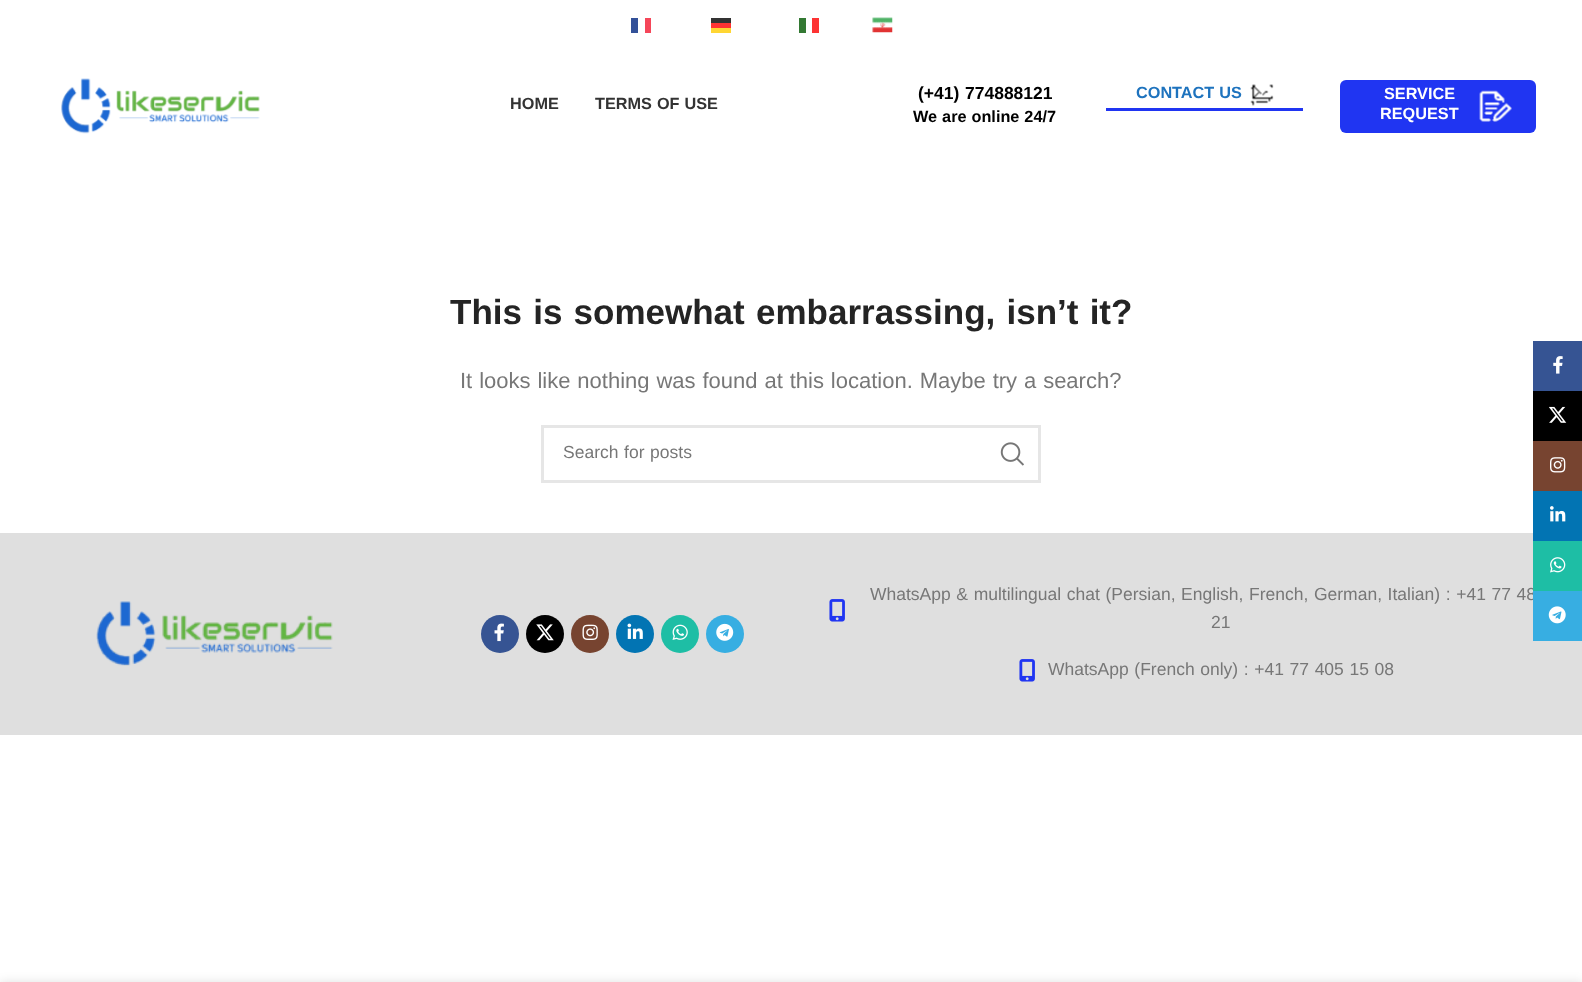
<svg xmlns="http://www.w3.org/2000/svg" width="1582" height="982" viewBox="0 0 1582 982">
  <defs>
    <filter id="blur1" x="-50%" y="-200%" width="200%" height="500%"><feGaussianBlur stdDeviation="5.5"/></filter>
  </defs>
  <rect width="100%" height="100%" fill="#ffffff"/>
  <rect x="631" y="18" width="7" height="15" fill="#335199"/>
  <rect x="645" y="18" width="6" height="15" fill="#f54659"/>
  <rect x="711" y="18" width="20" height="5" fill="#333333"/>
  <rect x="799" y="18" width="7" height="15" fill="#337933"/>
  <rect x="812" y="18" width="7" height="15" fill="#fd3333"/>
  <image x="872" y="17" width="21" height="16" href="img1.png"/>
  <rect x="711" y="23" width="20" height="5" fill="#ff3333"/>
  <rect x="711" y="28" width="20" height="5" fill="#ffd633"/>
  <image x="61" y="78" width="199" height="56" href="img2.png"/>
  <text x="510" y="109" font-family="Liberation Sans" font-size="16.25" font-weight="bold" fill="#333333">HOME</text>
  <text x="595" y="109" word-spacing="0.5" font-family="Liberation Sans" font-size="16.25" font-weight="bold" fill="#333333">TERMS OF USE</text>
  <text x="918" y="99" word-spacing="0.75" font-family="Liberation Sans" font-size="17.5" font-weight="bold" fill="#000000">(+41) 774888121</text>
  <text x="913" y="122" word-spacing="0.5" font-family="Liberation Sans" font-size="16.25" font-weight="bold" fill="#000000">We are online 24/7</text>
  <rect x="1106" y="108" width="197" height="3" fill="#2035f2"/>
  <text x="1136" y="98" word-spacing="0.5" font-family="Liberation Sans" font-size="16.25" font-weight="bold" fill="#1e73be">CONTACT US</text>
  <image x="1250" y="84" width="24" height="22" href="img3.png"/>
  <rect x="1340" y="80" width="196" height="53" rx="6" fill="#2035f2"/>
  <text x="1384" y="99" font-family="Liberation Sans" font-size="16.25" font-weight="bold" fill="#ffffff">SERVICE</text>
  <image x="1479" y="90" width="33" height="32" href="img4.png"/>
  <text x="1380" y="119" font-family="Liberation Sans" font-size="16.25" font-weight="bold" fill="#ffffff">REQUEST</text>
  <text x="450" y="324" word-spacing="1.5" font-family="Liberation Sans" font-size="35" font-weight="bold" fill="#242424">This is somewhat embarrassing, isn’t it?</text>
  <text x="460" y="388" word-spacing="0.8" font-family="Liberation Sans" font-size="22" fill="#777777">It looks like nothing was found at this location. Maybe try a search?</text>
  <rect x="542.5" y="426.5" width="497" height="55" fill="none" stroke="#e6e6e6" stroke-width="3"/>
  <text x="563" y="458" word-spacing="0.75" font-family="Liberation Sans" font-size="17.5" fill="#777777">Search for posts</text>
  <image x="1000" y="442" width="24" height="24" href="img5.png"/>
  <rect x="0" y="533" width="1582" height="202" fill="#dfdfdf"/>
  <image x="96" y="601" width="237" height="65" href="img6.png"/>
  <circle cx="500" cy="634" r="19" fill="#365493"/>
  <image x="494" y="623" width="10" height="19" href="img7.png"/>
  <circle cx="545" cy="634" r="19" fill="#000000"/>
  <image x="536" y="624" width="18" height="17" href="img8.png"/>
  <circle cx="590" cy="634" r="19" fill="#774430"/>
  <image x="582" y="624" width="16" height="16" href="img9.png"/>
  <circle cx="635" cy="634" r="19" fill="#0274b3"/>
  <image x="627" y="623" width="16" height="16" href="img10.png"/>
  <circle cx="680" cy="634" r="19" fill="#1ebea5"/>
  <image x="672" y="624" width="16" height="16" href="img11.png"/>
  <circle cx="725" cy="634" r="19" fill="#37aee2"/>
  <image x="716" y="623" width="18" height="18" href="img12.png"/>
  <image x="829" y="599" width="16" height="23" href="img13.png"/>
  <text x="870" y="600" word-spacing="0.75" font-family="Liberation Sans" font-size="17.5" fill="#777777">WhatsApp &amp; multilingual chat (Persian, English, French, German, Italian) : +41 77 48</text>
  <text x="1211" y="628" font-family="Liberation Sans" font-size="17.5" fill="#777777">21</text>
  <image x="1019" y="659" width="16" height="23" href="img13.png"/>
  <text x="1048" y="675" word-spacing="0.75" font-family="Liberation Sans" font-size="17.5" fill="#777777">WhatsApp (French only) : +41 77 405 15 08</text>
  <rect x="1533" y="341" width="49" height="50" fill="#365493"/>
  <image x="1553" y="356" width="10" height="18" href="img14.png"/>
  <rect x="1533" y="391" width="49" height="50" fill="#000000"/>
  <image x="1549" y="406" width="18" height="17" href="img15.png"/>
  <rect x="1533" y="441" width="49" height="50" fill="#774430"/>
  <image x="1550" y="457" width="16" height="16" href="img16.png"/>
  <rect x="1533" y="491" width="49" height="50" fill="#0274b3"/>
  <image x="1550" y="506" width="16" height="16" href="img17.png"/>
  <rect x="1533" y="541" width="49" height="50" fill="#1ebea5"/>
  <image x="1550" y="557" width="16" height="16" href="img18.png"/>
  <rect x="1533" y="591" width="49" height="50" fill="#37aee2"/>
  <image x="1548" y="606" width="18" height="18" href="img19.png"/>
  <rect x="0" y="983" width="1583" height="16" fill="#000000" fill-opacity="0.14" filter="url(#blur1)"/>
</svg>
